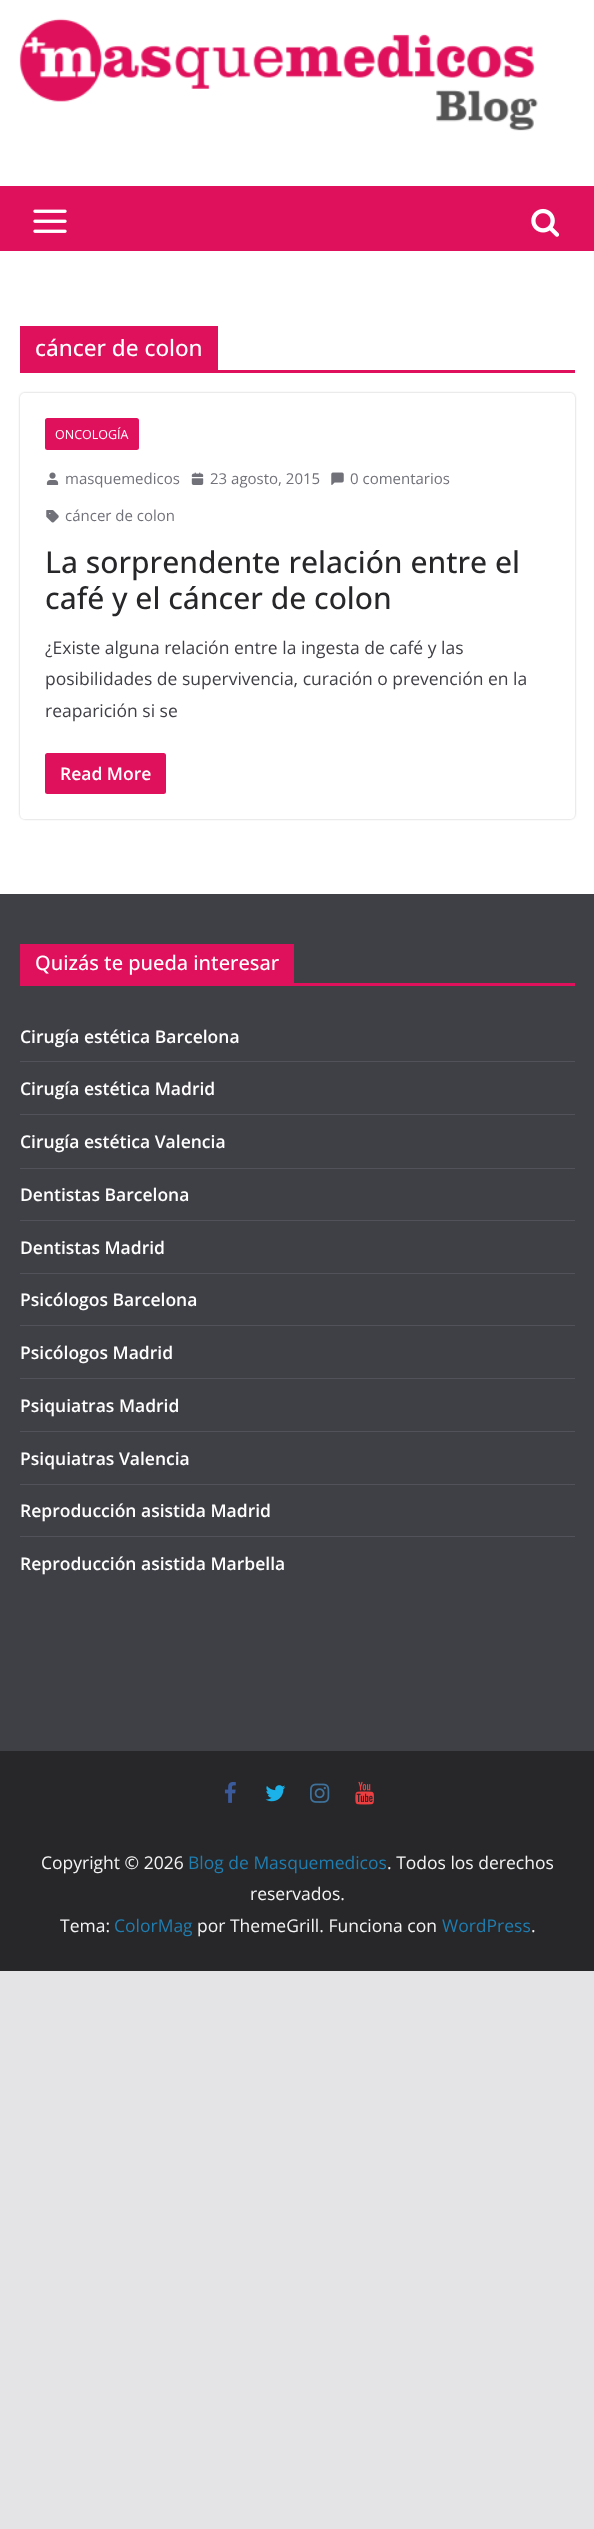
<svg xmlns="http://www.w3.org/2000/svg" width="594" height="2529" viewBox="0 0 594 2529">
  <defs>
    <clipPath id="clip1"><path d="M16 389H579V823H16ZM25 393H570C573 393 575 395 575 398V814C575 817 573 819 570 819H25C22 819 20 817 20 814V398C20 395 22 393 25 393Z" clip-rule="evenodd"/></clipPath>
    <filter id="blur1" x="-50%" y="-200%" width="200%" height="500%"><feGaussianBlur stdDeviation="1"/></filter>
  </defs>
  <rect width="100%" height="100%" fill="#e4e4e7"/>
  <rect x="0" y="0" width="594" height="186" fill="#ffffff"/>
  <image x="19" y="18" width="519" height="113" href="img1.png"/>
  <rect x="0" y="186" width="594" height="65" fill="#e0115c"/>
  <image x="33" y="209" width="34" height="24" href="img2.png"/>
  <image x="531" y="208" width="29" height="29" href="img3.png"/>
  <rect x="0" y="251" width="594" height="643" fill="#ffffff"/>
  <rect x="20" y="370" width="555" height="3" fill="#e0115c"/>
  <rect x="20" y="326" width="198" height="44" fill="#e0115c"/>
  <text x="35" y="356" font-family="Open Sans" font-size="22.5" font-weight="500" fill="#ffffff">cáncer de colon</text>
  <g clip-path="url(#clip1)">
    <rect x="20" y="393" width="555" height="426" rx="5" fill="#000000" fill-opacity="0.24" filter="url(#blur1)"/>
  </g>
  <rect x="45" y="418" width="94" height="32" rx="2.5" fill="#e0115c"/>
  <text x="55" y="439" font-family="Open Sans" font-size="12.5" fill="#ffffff">ONCOLOGÍA</text>
  <image x="46" y="472" width="13" height="13" href="img4.png"/>
  <text x="65" y="484" font-family="Open Sans" font-size="15" fill="#71717a">masquemedicos</text>
  <image x="191" y="472" width="13" height="13" href="img5.png"/>
  <text x="210" y="484" font-family="Open Sans" font-size="15" fill="#71717a">23 agosto, 2015</text>
  <image x="331" y="472" width="13" height="13" href="img6.png"/>
  <text x="350" y="484" font-family="Open Sans" font-size="15" fill="#71717a">0 comentarios</text>
  <image x="46" y="510" width="13" height="13" href="img7.png"/>
  <text x="65" y="521" font-family="Open Sans" font-size="15" fill="#71717a">cáncer de colon</text>
  <text x="45" y="573" font-family="Open Sans" font-size="30" font-weight="500" fill="#27272a">La sorprendente relación entre el</text>
  <text x="45" y="609" font-family="Open Sans" font-size="30" font-weight="500" fill="#27272a">café y el cáncer de colon</text>
  <text x="45" y="654" font-family="Open Sans" font-size="17.5" fill="#3f3f46">¿Existe alguna relación entre la ingesta de café y las</text>
  <text x="45" y="685" font-family="Open Sans" font-size="17.5" fill="#3f3f46">posibilidades de supervivencia, curación o prevención en la</text>
  <text x="45" y="717" font-family="Open Sans" font-size="17.5" fill="#3f3f46">reaparición si se</text>
  <rect x="45" y="753" width="121" height="41" rx="2.5" fill="#e0115c"/>
  <text x="60" y="780" font-family="Open Sans" font-size="17.5" font-weight="600" fill="#ffffff">Read More</text>
  <rect x="0" y="894" width="594" height="857" fill="#3f3f46"/>
  <rect x="20" y="983" width="555" height="3" fill="#e0115c"/>
  <rect x="20" y="944" width="274" height="39" fill="#e0115c"/>
  <text x="35" y="970" font-family="Open Sans" font-size="20" font-weight="500" fill="#ffffff">Quizás te pueda interesar</text>
  <rect x="20" y="1061" width="555" height="1" fill="#52525b"/>
  <text x="20" y="1043" font-family="Open Sans" font-size="17.5" font-weight="600" fill="#ffffff">Cirugía estética Barcelona</text>
  <rect x="20" y="1114" width="555" height="1" fill="#52525b"/>
  <text x="20" y="1095" font-family="Open Sans" font-size="17.5" font-weight="600" fill="#ffffff">Cirugía estética Madrid</text>
  <rect x="20" y="1168" width="555" height="1" fill="#52525b"/>
  <text x="20" y="1148" font-family="Open Sans" font-size="17.5" font-weight="600" fill="#ffffff">Cirugía estética Valencia</text>
  <rect x="20" y="1220" width="555" height="1" fill="#52525b"/>
  <text x="20" y="1201" font-family="Open Sans" font-size="17.5" font-weight="600" fill="#ffffff">Dentistas Barcelona</text>
  <rect x="20" y="1273" width="555" height="1" fill="#52525b"/>
  <text x="20" y="1254" font-family="Open Sans" font-size="17.5" font-weight="600" fill="#ffffff">Dentistas Madrid</text>
  <rect x="20" y="1325" width="555" height="1" fill="#52525b"/>
  <text x="20" y="1306" font-family="Open Sans" font-size="17.5" font-weight="600" fill="#ffffff">Psicólogos Barcelona</text>
  <rect x="20" y="1378" width="555" height="1" fill="#52525b"/>
  <text x="20" y="1359" font-family="Open Sans" font-size="17.5" font-weight="600" fill="#ffffff">Psicólogos Madrid</text>
  <rect x="20" y="1431" width="555" height="1" fill="#52525b"/>
  <text x="20" y="1412" font-family="Open Sans" font-size="17.5" font-weight="600" fill="#ffffff">Psiquiatras Madrid</text>
  <rect x="20" y="1484" width="555" height="1" fill="#52525b"/>
  <text x="20" y="1465" font-family="Open Sans" font-size="17.5" font-weight="600" fill="#ffffff">Psiquiatras Valencia</text>
  <rect x="20" y="1536" width="555" height="1" fill="#52525b"/>
  <text x="20" y="1517" font-family="Open Sans" font-size="17.5" font-weight="600" fill="#ffffff">Reproducción asistida Madrid</text>
  <text x="20" y="1570" font-family="Open Sans" font-size="17.5" font-weight="600" fill="#ffffff">Reproducción asistida Marbella</text>
  <rect x="0" y="1751" width="594" height="220" fill="#27272a"/>
  <image x="224" y="1782" width="12" height="21" href="img8.png"/>
  <image x="265" y="1785" width="21" height="17" href="img9.png"/>
  <image x="310" y="1783" width="20" height="20" href="img10.png"/>
  <image x="355" y="1781" width="19" height="24" href="img11.png"/>
  <text x="41" y="1869" font-family="Open Sans" font-size="17.5" fill="#f4f4f5">Copyright © 2026</text>
  <text x="188" y="1869" font-family="Open Sans" font-size="17.5" fill="#207daf">Blog de Masquemedicos</text>
  <text x="387" y="1869" font-family="Open Sans" font-size="17.5" fill="#f4f4f5">. Todos los derechos</text>
  <text x="250" y="1900" font-family="Open Sans" font-size="17.5" fill="#f4f4f5">reservados.</text>
  <text x="60" y="1932" font-family="Open Sans" font-size="17.5" fill="#f4f4f5">Tema:</text>
  <text x="114" y="1932" font-family="Open Sans" font-size="17.5" fill="#207daf">ColorMag</text>
  <text x="197" y="1932" font-family="Open Sans" font-size="17.5" fill="#f4f4f5">por ThemeGrill. Funciona con</text>
  <text x="442" y="1932" font-family="Open Sans" font-size="17.5" fill="#207daf">WordPress</text>
  <text x="531" y="1932" font-family="Open Sans" font-size="17.5" fill="#f4f4f5">.</text>
</svg>
